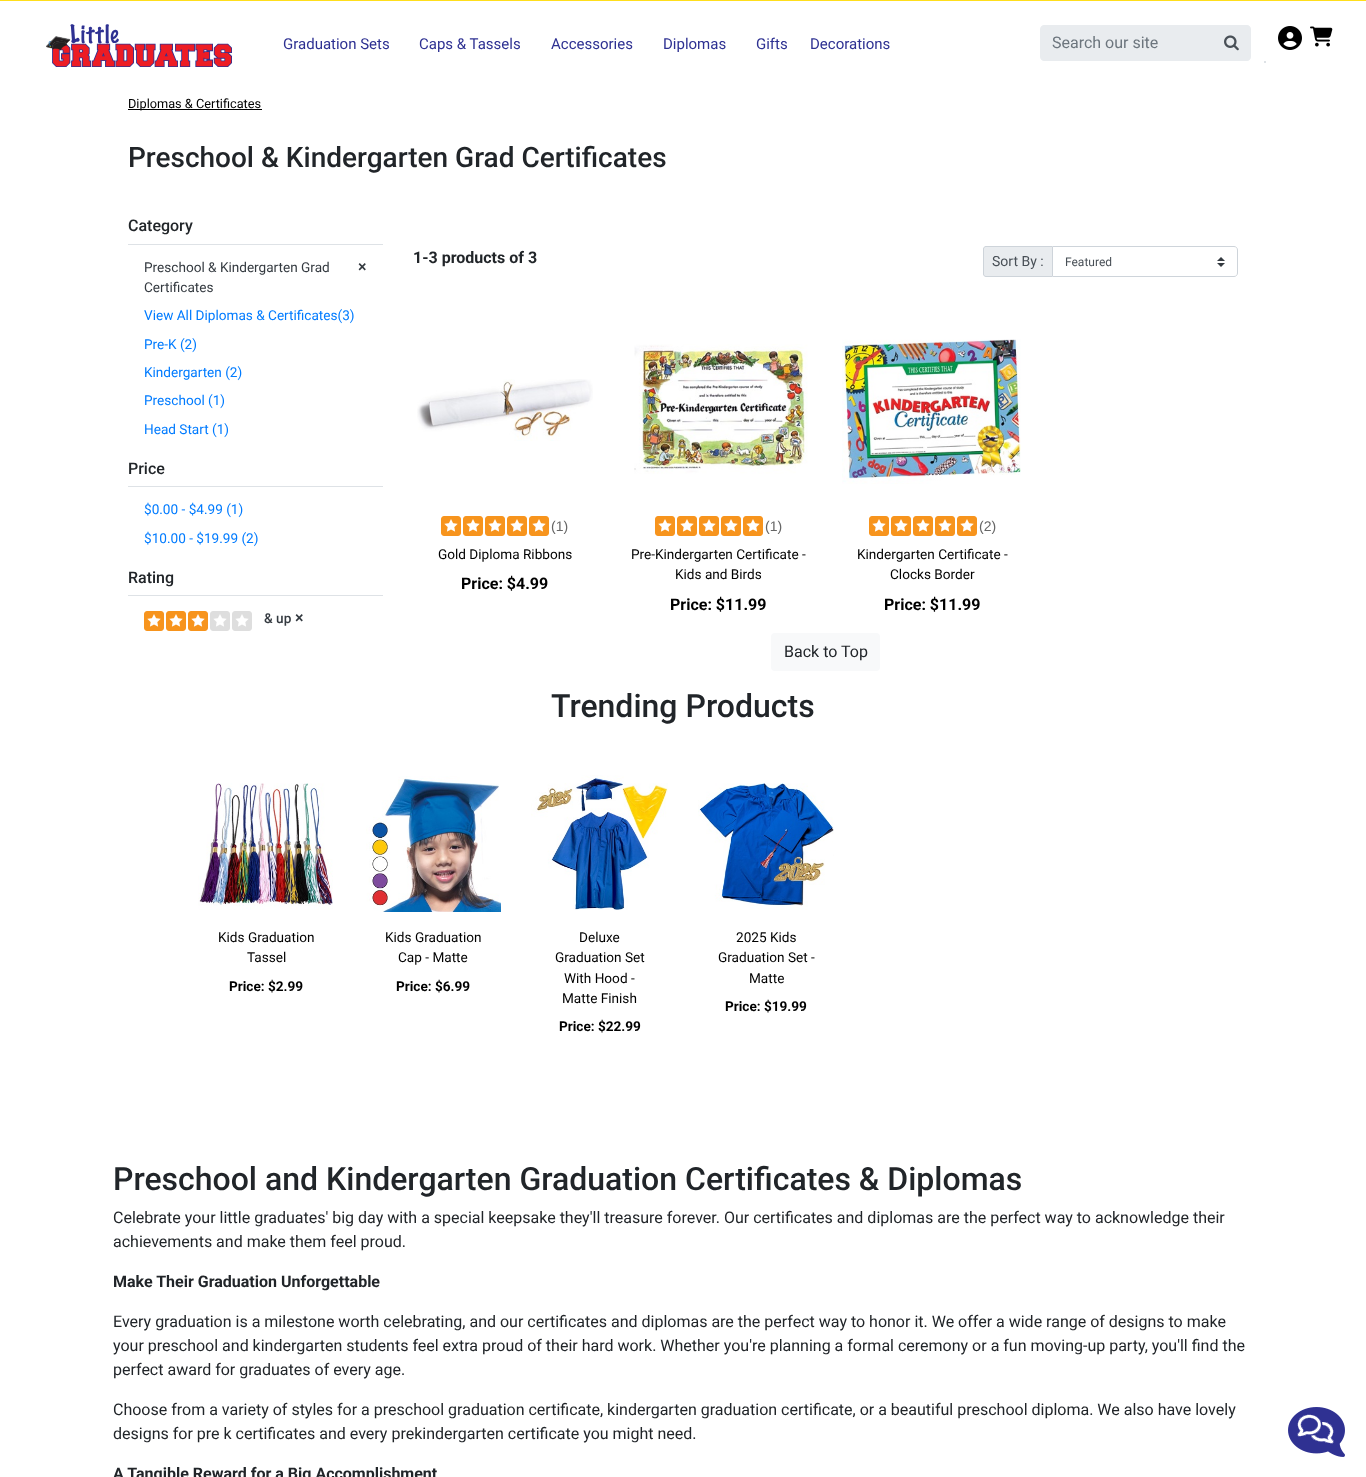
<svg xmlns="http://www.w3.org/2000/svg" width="1366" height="1477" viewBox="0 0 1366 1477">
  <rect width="100%" height="100%" fill="#ffffff"/>
  <rect x="0" y="0" width="1366" height="1" fill="#ffde1b"/>
  <image x="46" y="24" width="186" height="43" href="img1.png"/>
  <text x="283" y="49" font-family="Roboto" font-size="15" fill="#2e3192">Graduation Sets</text>
  <text x="419" y="49" font-family="Roboto" font-size="15" fill="#2e3192">Caps &amp; Tassels</text>
  <text x="551" y="49" font-family="Roboto" font-size="15" fill="#2e3192">Accessories</text>
  <text x="663" y="49" font-family="Roboto" font-size="15" fill="#2e3192">Diplomas</text>
  <text x="756" y="49" font-family="Roboto" font-size="15" fill="#2e3192">Gifts</text>
  <text x="810" y="49" font-family="Roboto" font-size="15" fill="#2e3192">Decorations</text>
  <path d="M1212 25H1247C1249 25 1251 27 1251 29V57C1251 59 1249 61 1247 61H1212Z" fill="#e9ecef"/>
  <path d="M1044 25H1213V61H1044C1042 61 1040 59 1040 57V29C1040 27 1042 25 1044 25Z" fill="#e9ecef"/>
  <text x="1052" y="48" font-family="Roboto" font-size="16" fill="#6c757d">Search our site</text>
  <image x="1224" y="35" width="15" height="16" href="img2.png"/>
  <rect x="1264" y="61" width="2" height="2" fill="#dee2e6"/>
  <image x="1278" y="26" width="24" height="24" href="img3.png"/>
  <image x="1310" y="26" width="23" height="21" href="img4.png"/>
  <rect x="128" y="109" width="134" height="1" fill="#000000"/>
  <text x="128" y="108" font-family="Roboto" font-size="12.75" fill="#000000">Diplomas &amp; Certificates</text>
  <text x="128" y="167" font-family="Roboto" font-size="28" font-weight="500" fill="#212529">Preschool &amp; Kindergarten Grad Certificates</text>
  <rect x="128" y="244" width="255" height="1" fill="#dee2e6"/>
  <text x="128" y="231" font-family="Roboto" font-size="16" font-weight="500" fill="#212529">Category</text>
  <text x="144" y="272" font-family="Roboto" font-size="13.6" fill="#343a40">Preschool &amp; Kindergarten Grad</text>
  <text x="358" y="272" font-family="Roboto" font-size="16" font-weight="500" fill="#343a40">×</text>
  <text x="144" y="292" font-family="Roboto" font-size="13.6" fill="#343a40">Certificates</text>
  <text x="144" y="320" font-family="Roboto" font-size="13.6" fill="#007bff">View All Diplomas &amp; Certificates(3)</text>
  <text x="144" y="349" font-family="Roboto" font-size="13.6" fill="#007bff">Pre-K (2)</text>
  <text x="144" y="377" font-family="Roboto" font-size="13.6" fill="#007bff">Kindergarten (2)</text>
  <text x="144" y="405" font-family="Roboto" font-size="13.6" fill="#007bff">Preschool (1)</text>
  <text x="144" y="434" font-family="Roboto" font-size="13.6" fill="#007bff">Head Start (1)</text>
  <rect x="128" y="486" width="255" height="1" fill="#dee2e6"/>
  <text x="128" y="474" font-family="Roboto" font-size="16" font-weight="500" fill="#212529">Price</text>
  <text x="144" y="514" font-family="Roboto" font-size="13.6" fill="#007bff">$0.00 - $4.99 (1)</text>
  <text x="144" y="543" font-family="Roboto" font-size="13.6" fill="#007bff">$10.00 - $19.99 (2)</text>
  <rect x="128" y="595" width="255" height="1" fill="#dee2e6"/>
  <text x="128" y="583" font-family="Roboto" font-size="16" font-weight="500" fill="#212529">Rating</text>
  <image x="144" y="611" width="20" height="20" href="img5.png"/>
  <image x="166" y="611" width="20" height="20" href="img5.png"/>
  <image x="188" y="611" width="20" height="20" href="img5.png"/>
  <image x="210" y="611" width="20" height="20" href="img6.png"/>
  <image x="232" y="611" width="20" height="20" href="img6.png"/>
  <text x="264" y="623" font-family="Roboto" font-size="13.6" font-weight="500" fill="#343a40">&amp; up</text>
  <text x="295" y="623" font-family="Roboto" font-size="16" font-weight="500" fill="#343a40">×</text>
  <text x="413" y="263" font-family="Roboto" font-size="16" font-weight="bold" fill="#212529">1-3 products of 3</text>
  <path d="M986 246.5H1052.5V276.5H986C984.5 276.5 983.5 275.5 983.5 274V249C983.5 247.5 984.5 246.5 986 246.5Z" fill="#e9ecef" stroke="#ced4da"/>
  <text x="992" y="266" font-family="Roboto" font-size="14" fill="#495057">Sort By :</text>
  <path d="M1052 246H1234C1236 246 1238 248 1238 250V273C1238 275 1236 277 1234 277H1052Z" fill="#ffffff"/>
  <image x="1217" y="257" width="8" height="10" href="img7.png"/>
  <path d="M1052.5 246.5H1234C1236 246.5 1237.5 248 1237.5 250V273C1237.5 275 1236 276.5 1234 276.5H1052.5Z" fill="none" stroke="#ced4da"/>
  <text x="1065" y="266" font-family="Roboto" font-size="12" fill="#495057">Featured</text>
  <image x="417" y="379" width="176" height="62" href="img8.png"/>
  <image x="441" y="516" width="20" height="20" href="img5.png"/>
  <image x="463" y="516" width="20" height="20" href="img5.png"/>
  <image x="485" y="516" width="20" height="20" href="img5.png"/>
  <image x="507" y="516" width="20" height="20" href="img5.png"/>
  <image x="529" y="516" width="20" height="20" href="img5.png"/>
  <text x="551" y="531" font-family="Liberation Sans" font-size="14" fill="#666666">(1)</text>
  <text x="438" y="559" font-family="Roboto" font-size="13.6" fill="#000000">Gold Diploma Ribbons</text>
  <text x="461" y="589" font-family="Roboto" font-size="16" font-weight="bold" fill="#000000">Price: $4.99</text>
  <image x="634" y="344" width="174" height="130" href="img9.png"/>
  <image x="655" y="516" width="20" height="20" href="img5.png"/>
  <image x="677" y="516" width="20" height="20" href="img5.png"/>
  <image x="699" y="516" width="20" height="20" href="img5.png"/>
  <image x="721" y="516" width="20" height="20" href="img5.png"/>
  <image x="743" y="516" width="20" height="20" href="img5.png"/>
  <text x="765" y="531" font-family="Liberation Sans" font-size="14" fill="#666666">(1)</text>
  <text x="631" y="559" font-family="Roboto" font-size="13.6" fill="#000000">Pre-Kindergarten Certificate -</text>
  <text x="675" y="579" font-family="Roboto" font-size="13.6" fill="#000000">Kids and Birds</text>
  <text x="670" y="610" font-family="Roboto" font-size="16" font-weight="bold" fill="#000000">Price: $11.99</text>
  <image x="842" y="339" width="179" height="145" href="img10.png"/>
  <image x="869" y="516" width="20" height="20" href="img5.png"/>
  <image x="891" y="516" width="20" height="20" href="img5.png"/>
  <image x="913" y="516" width="20" height="20" href="img5.png"/>
  <image x="935" y="516" width="20" height="20" href="img5.png"/>
  <image x="957" y="516" width="20" height="20" href="img5.png"/>
  <text x="979" y="531" font-family="Liberation Sans" font-size="14" fill="#666666">(2)</text>
  <text x="857" y="559" font-family="Roboto" font-size="13.6" fill="#000000">Kindergarten Certificate -</text>
  <text x="890" y="579" font-family="Roboto" font-size="13.6" fill="#000000">Clocks Border</text>
  <text x="884" y="610" font-family="Roboto" font-size="16" font-weight="bold" fill="#000000">Price: $11.99</text>
  <rect x="771" y="633" width="109" height="38" rx="4" fill="#f8f9fa"/>
  <text x="784" y="657" font-family="Roboto" font-size="16" fill="#212529">Back to Top</text>
  <text x="551" y="717" font-family="Roboto" font-size="32" font-weight="500" fill="#212529">Trending Products</text>
  <image x="198" y="783" width="135" height="127" href="img11.png"/>
  <text x="218" y="942" font-family="Roboto" font-size="13.6" fill="#000000">Kids Graduation</text>
  <text x="247" y="962" font-family="Roboto" font-size="13.6" fill="#000000">Tassel</text>
  <text x="229" y="991" font-family="Roboto" font-size="13.6" font-weight="bold" fill="#000000">Price: $2.99</text>
  <image x="366" y="776" width="135" height="136" href="img12.png"/>
  <text x="385" y="942" font-family="Roboto" font-size="13.6" fill="#000000">Kids Graduation</text>
  <text x="398" y="962" font-family="Roboto" font-size="13.6" fill="#000000">Cap - Matte</text>
  <text x="396" y="991" font-family="Roboto" font-size="13.6" font-weight="bold" fill="#000000">Price: $6.99</text>
  <image x="531" y="775" width="137" height="135" href="img13.png"/>
  <text x="579" y="942" font-family="Roboto" font-size="13.6" fill="#000000">Deluxe</text>
  <text x="555" y="962" font-family="Roboto" font-size="13.6" fill="#000000">Graduation Set</text>
  <text x="564" y="983" font-family="Roboto" font-size="13.6" fill="#000000">With Hood -</text>
  <text x="562" y="1003" font-family="Roboto" font-size="13.6" fill="#000000">Matte Finish</text>
  <text x="559" y="1031" font-family="Roboto" font-size="13.6" font-weight="bold" fill="#000000">Price: $22.99</text>
  <image x="698" y="783" width="136" height="127" href="img14.png"/>
  <text x="736" y="942" font-family="Roboto" font-size="13.6" fill="#000000">2025 Kids</text>
  <text x="718" y="962" font-family="Roboto" font-size="13.6" fill="#000000">Graduation Set -</text>
  <text x="749" y="983" font-family="Roboto" font-size="13.6" fill="#000000">Matte</text>
  <text x="725" y="1011" font-family="Roboto" font-size="13.6" font-weight="bold" fill="#000000">Price: $19.99</text>
  <text x="113" y="1190" font-family="Roboto" font-size="32" font-weight="500" fill="#212529">Preschool and Kindergarten Graduation Certificates &amp; Diplomas</text>
  <text x="113" y="1223" font-family="Roboto" font-size="16" fill="#212529">Celebrate your little graduates' big day with a special keepsake they'll treasure forever. Our certificates and diplomas are the perfect way to acknowledge their</text>
  <text x="113" y="1247" font-family="Roboto" font-size="16" fill="#212529">achievements and make them feel proud.</text>
  <text x="113" y="1287" font-family="Roboto" font-size="16" font-weight="bold" fill="#212529">Make Their Graduation Unforgettable</text>
  <text x="113" y="1327" font-family="Roboto" font-size="16" fill="#212529">Every graduation is a milestone worth celebrating, and our certificates and diplomas are the perfect way to honor it. We offer a wide range of designs to make</text>
  <text x="113" y="1351" font-family="Roboto" font-size="16" fill="#212529">your preschool and kindergarten students feel extra proud of their hard work. Whether you're planning a formal ceremony or a fun moving-up party, you'll find the</text>
  <text x="113" y="1375" font-family="Roboto" font-size="16" fill="#212529">perfect award for graduates of every age.</text>
  <text x="113" y="1415" font-family="Roboto" font-size="16" fill="#212529">Choose from a variety of styles for a preschool graduation certificate, kindergarten graduation certificate, or a beautiful preschool diploma. We also have lovely</text>
  <text x="113" y="1439" font-family="Roboto" font-size="16" fill="#212529">designs for pre k certificates and every prekindergarten certificate you might need.</text>
  <text x="113" y="1479" font-family="Roboto" font-size="16" font-weight="bold" fill="#212529">A Tangible Reward for a Big Accomplishment</text>
  <image x="1288" y="1407" width="57" height="50" href="img15.png"/>
</svg>
